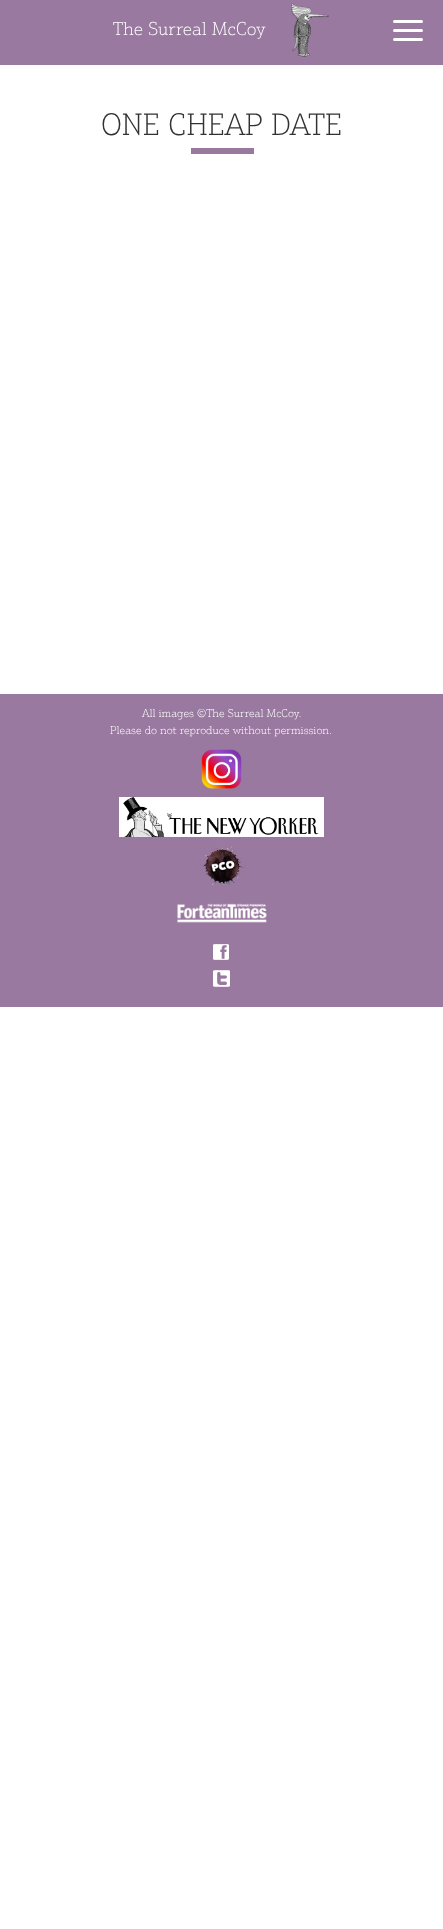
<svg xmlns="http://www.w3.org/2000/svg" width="443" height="1929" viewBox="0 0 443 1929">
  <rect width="100%" height="100%" fill="#ffffff"/>
  <rect x="0" y="0" width="443" height="65" fill="#99799f"/>
  <text x="113" y="35" font-family="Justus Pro" font-size="18" font-weight="100" fill="#ffffff">The Surreal McCoy</text>
  <image x="291" y="3" width="38" height="54" href="img1.png"/>
  <rect x="393" y="20" width="30" height="3" rx="1.5" fill="#ffffff"/>
  <rect x="393" y="29" width="30" height="3" rx="1.5" fill="#ffffff"/>
  <rect x="393" y="38" width="30" height="3" rx="1.5" fill="#ffffff"/>
  <text x="101" y="135" font-family="Justus Pro" font-size="30" font-weight="100" fill="#323232">ONE CHEAP DATE</text>
  <rect x="191" y="148" width="63" height="6" fill="#99799f"/>
  <rect x="0" y="694" width="443" height="313" fill="#99799f"/>
  <text x="142" y="717" font-family="Justus Pro" font-size="11" font-weight="100" fill="#ffffff">All images ©The Surreal McCoy.</text>
  <text x="110" y="734" font-family="Justus Pro" font-size="11" font-weight="100" fill="#ffffff">Please do not reproduce without permission.</text>
  <image x="201" y="749" width="41" height="40" href="img2.png"/>
  <image x="119" y="797" width="205" height="40" href="img3.png"/>
  <image x="200" y="845" width="44" height="40" href="img4.png"/>
  <image x="177" y="903" width="90" height="20" href="img5.png"/>
  <image x="213" y="944" width="16" height="16" href="img6.png"/>
  <image x="213" y="970" width="17" height="17" href="img7.png"/>
</svg>
